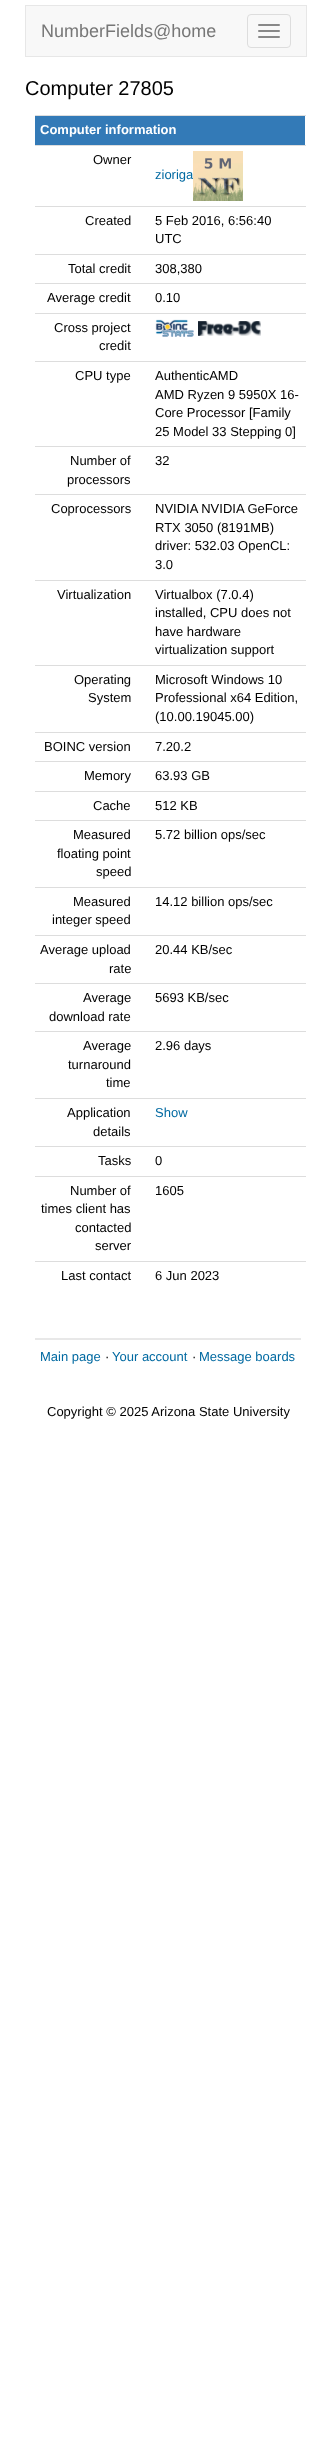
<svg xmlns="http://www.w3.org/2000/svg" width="332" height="2447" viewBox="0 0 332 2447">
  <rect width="100%" height="100%" fill="#ffffff"/>
  <rect x="25.5" y="5.5" width="281" height="51" fill="#f8f8f8" stroke="#e7e7e7"/>
  <text x="41" y="37" font-family="Liberation Sans" font-size="18" fill="#777777">NumberFields@home</text>
  <rect x="247.5" y="14.5" width="43" height="33" rx="3.5" fill="none" stroke="#dddddd"/>
  <rect x="258" y="24" width="22" height="2" rx="1" fill="#888888"/>
  <rect x="258" y="30" width="22" height="2" rx="1" fill="#888888"/>
  <rect x="258" y="36" width="22" height="2" rx="1" fill="#888888"/>
  <text x="25" y="95" font-family="Liberation Sans" font-size="20" fill="#000000">Computer 27805</text>
  <rect x="35" y="116" width="270" height="29" fill="#337ab7"/>
  <rect x="35" y="115" width="271" height="1" fill="#dddddd"/>
  <text x="40" y="134" font-family="Liberation Sans" font-size="13" font-weight="bold" fill="#ffffff">Computer information</text>
  <text x="93" y="164" font-family="Liberation Sans" font-size="13" fill="#000000">Owner</text>
  <rect x="35" y="145" width="271" height="1" fill="#dddddd"/>
  <text x="155" y="179" font-family="Liberation Sans" font-size="13" fill="#0069a1">zioriga</text>
  <image x="193" y="151" width="50" height="50" href="img1.png"/>
  <text x="85" y="225" font-family="Liberation Sans" font-size="13" fill="#000000">Created</text>
  <rect x="35" y="206" width="271" height="1" fill="#dddddd"/>
  <text x="155" y="225" font-family="Liberation Sans" font-size="13" fill="#000000">5 Feb 2016, 6:56:40</text>
  <text x="155" y="243" font-family="Liberation Sans" font-size="13" fill="#000000">UTC</text>
  <text x="68" y="273" font-family="Liberation Sans" font-size="13" fill="#000000">Total credit</text>
  <rect x="35" y="254" width="271" height="1" fill="#dddddd"/>
  <text x="155" y="273" font-family="Liberation Sans" font-size="13" fill="#000000">308,380</text>
  <text x="47" y="302" font-family="Liberation Sans" font-size="13" fill="#000000">Average credit</text>
  <rect x="35" y="283" width="271" height="1" fill="#dddddd"/>
  <text x="155" y="302" font-family="Liberation Sans" font-size="13" fill="#000000">0.10</text>
  <rect x="35" y="313" width="271" height="1" fill="#dddddd"/>
  <image x="155" y="319" width="39" height="18" href="img2.png"/>
  <image x="198" y="321" width="63" height="15" href="img3.png"/>
  <text x="54" y="332" font-family="Liberation Sans" font-size="13" fill="#000000">Cross project</text>
  <text x="99" y="350" font-family="Liberation Sans" font-size="13" fill="#000000">credit</text>
  <text x="75" y="380" font-family="Liberation Sans" font-size="13" fill="#000000">CPU type</text>
  <rect x="35" y="361" width="271" height="1" fill="#dddddd"/>
  <text x="155" y="380" font-family="Liberation Sans" font-size="13" fill="#000000">AuthenticAMD</text>
  <text x="155" y="399" font-family="Liberation Sans" font-size="13" fill="#000000">AMD Ryzen 9 5950X 16-</text>
  <text x="155" y="417" font-family="Liberation Sans" font-size="13" fill="#000000">Core Processor [Family</text>
  <text x="155" y="436" font-family="Liberation Sans" font-size="13" fill="#000000">25 Model 33 Stepping 0]</text>
  <text x="70" y="465" font-family="Liberation Sans" font-size="13" fill="#000000">Number of</text>
  <text x="67" y="484" font-family="Liberation Sans" font-size="13" fill="#000000">processors</text>
  <rect x="35" y="446" width="271" height="1" fill="#dddddd"/>
  <text x="155" y="465" font-family="Liberation Sans" font-size="13" fill="#000000">32</text>
  <text x="51" y="513" font-family="Liberation Sans" font-size="13" fill="#000000">Coprocessors</text>
  <rect x="35" y="494" width="271" height="1" fill="#dddddd"/>
  <text x="155" y="513" font-family="Liberation Sans" font-size="13" fill="#000000">NVIDIA NVIDIA GeForce</text>
  <text x="155" y="532" font-family="Liberation Sans" font-size="13" fill="#000000">RTX 3050 (8191MB)</text>
  <text x="155" y="550" font-family="Liberation Sans" font-size="13" fill="#000000">driver: 532.03 OpenCL:</text>
  <text x="155" y="569" font-family="Liberation Sans" font-size="13" fill="#000000">3.0</text>
  <text x="57" y="599" font-family="Liberation Sans" font-size="13" fill="#000000">Virtualization</text>
  <rect x="35" y="580" width="271" height="1" fill="#dddddd"/>
  <text x="155" y="599" font-family="Liberation Sans" font-size="13" fill="#000000">Virtualbox (7.0.4)</text>
  <text x="155" y="617" font-family="Liberation Sans" font-size="13" fill="#000000">installed, CPU does not</text>
  <text x="155" y="636" font-family="Liberation Sans" font-size="13" fill="#000000">have hardware</text>
  <text x="155" y="654" font-family="Liberation Sans" font-size="13" fill="#000000">virtualization support</text>
  <text x="74" y="684" font-family="Liberation Sans" font-size="13" fill="#000000">Operating</text>
  <text x="88" y="702" font-family="Liberation Sans" font-size="13" fill="#000000">System</text>
  <rect x="35" y="665" width="271" height="1" fill="#dddddd"/>
  <text x="155" y="684" font-family="Liberation Sans" font-size="13" fill="#000000">Microsoft Windows 10</text>
  <text x="155" y="702" font-family="Liberation Sans" font-size="13" fill="#000000">Professional x64 Edition,</text>
  <text x="155" y="721" font-family="Liberation Sans" font-size="13" fill="#000000">(10.00.19045.00)</text>
  <text x="44" y="751" font-family="Liberation Sans" font-size="13" fill="#000000">BOINC version</text>
  <rect x="35" y="732" width="271" height="1" fill="#dddddd"/>
  <text x="155" y="751" font-family="Liberation Sans" font-size="13" fill="#000000">7.20.2</text>
  <text x="84" y="780" font-family="Liberation Sans" font-size="13" fill="#000000">Memory</text>
  <rect x="35" y="761" width="271" height="1" fill="#dddddd"/>
  <text x="155" y="780" font-family="Liberation Sans" font-size="13" fill="#000000">63.93 GB</text>
  <text x="93" y="810" font-family="Liberation Sans" font-size="13" fill="#000000">Cache</text>
  <rect x="35" y="791" width="271" height="1" fill="#dddddd"/>
  <text x="155" y="810" font-family="Liberation Sans" font-size="13" fill="#000000">512 KB</text>
  <text x="73" y="839" font-family="Liberation Sans" font-size="13" fill="#000000">Measured</text>
  <text x="57" y="858" font-family="Liberation Sans" font-size="13" fill="#000000">floating point</text>
  <text x="96" y="876" font-family="Liberation Sans" font-size="13" fill="#000000">speed</text>
  <rect x="35" y="820" width="271" height="1" fill="#dddddd"/>
  <text x="155" y="839" font-family="Liberation Sans" font-size="13" fill="#000000">5.72 billion ops/sec</text>
  <text x="73" y="906" font-family="Liberation Sans" font-size="13" fill="#000000">Measured</text>
  <text x="52" y="924" font-family="Liberation Sans" font-size="13" fill="#000000">integer speed</text>
  <rect x="35" y="887" width="271" height="1" fill="#dddddd"/>
  <text x="155" y="906" font-family="Liberation Sans" font-size="13" fill="#000000">14.12 billion ops/sec</text>
  <text x="40" y="954" font-family="Liberation Sans" font-size="13" fill="#000000">Average upload</text>
  <text x="109" y="973" font-family="Liberation Sans" font-size="13" fill="#000000">rate</text>
  <rect x="35" y="935" width="271" height="1" fill="#dddddd"/>
  <text x="155" y="954" font-family="Liberation Sans" font-size="13" fill="#000000">20.44 KB/sec</text>
  <text x="83" y="1002" font-family="Liberation Sans" font-size="13" fill="#000000">Average</text>
  <text x="49" y="1021" font-family="Liberation Sans" font-size="13" fill="#000000">download rate</text>
  <rect x="35" y="983" width="271" height="1" fill="#dddddd"/>
  <text x="155" y="1002" font-family="Liberation Sans" font-size="13" fill="#000000">5693 KB/sec</text>
  <text x="83" y="1050" font-family="Liberation Sans" font-size="13" fill="#000000">Average</text>
  <text x="68" y="1069" font-family="Liberation Sans" font-size="13" fill="#000000">turnaround</text>
  <text x="106" y="1087" font-family="Liberation Sans" font-size="13" fill="#000000">time</text>
  <rect x="35" y="1031" width="271" height="1" fill="#dddddd"/>
  <text x="155" y="1050" font-family="Liberation Sans" font-size="13" fill="#000000">2.96 days</text>
  <text x="67" y="1117" font-family="Liberation Sans" font-size="13" fill="#000000">Application</text>
  <text x="93" y="1136" font-family="Liberation Sans" font-size="13" fill="#000000">details</text>
  <rect x="35" y="1098" width="271" height="1" fill="#dddddd"/>
  <text x="155" y="1117" font-family="Liberation Sans" font-size="13" fill="#0069a1">Show</text>
  <text x="98" y="1165" font-family="Liberation Sans" font-size="13" fill="#000000">Tasks</text>
  <rect x="35" y="1146" width="271" height="1" fill="#dddddd"/>
  <text x="155" y="1165" font-family="Liberation Sans" font-size="13" fill="#000000">0</text>
  <text x="70" y="1195" font-family="Liberation Sans" font-size="13" fill="#000000">Number of</text>
  <text x="41" y="1213" font-family="Liberation Sans" font-size="13" fill="#000000">times client has</text>
  <text x="75" y="1232" font-family="Liberation Sans" font-size="13" fill="#000000">contacted</text>
  <text x="95" y="1250" font-family="Liberation Sans" font-size="13" fill="#000000">server</text>
  <rect x="35" y="1176" width="271" height="1" fill="#dddddd"/>
  <text x="155" y="1195" font-family="Liberation Sans" font-size="13" fill="#000000">1605</text>
  <text x="61" y="1280" font-family="Liberation Sans" font-size="13" fill="#000000">Last contact</text>
  <rect x="35" y="1261" width="271" height="1" fill="#dddddd"/>
  <text x="155" y="1280" font-family="Liberation Sans" font-size="13" fill="#000000">6 Jun 2023</text>
  <rect x="35" y="1338" width="266" height="2" fill="#e8e8e8"/>
  <text x="40" y="1361" font-family="Liberation Sans" font-size="13" fill="#0069a1">Main page</text>
  <text x="105" y="1361" font-family="Liberation Sans" font-size="13" fill="#000000">·</text>
  <text x="112" y="1361" font-family="Liberation Sans" font-size="13" fill="#0069a1">Your account</text>
  <text x="192" y="1361" font-family="Liberation Sans" font-size="13" fill="#000000">·</text>
  <text x="199" y="1361" font-family="Liberation Sans" font-size="13" fill="#0069a1">Message boards</text>
  <text x="47" y="1416" font-family="Liberation Sans" font-size="13" fill="#000000">Copyright © 2025 Arizona State University</text>
</svg>
